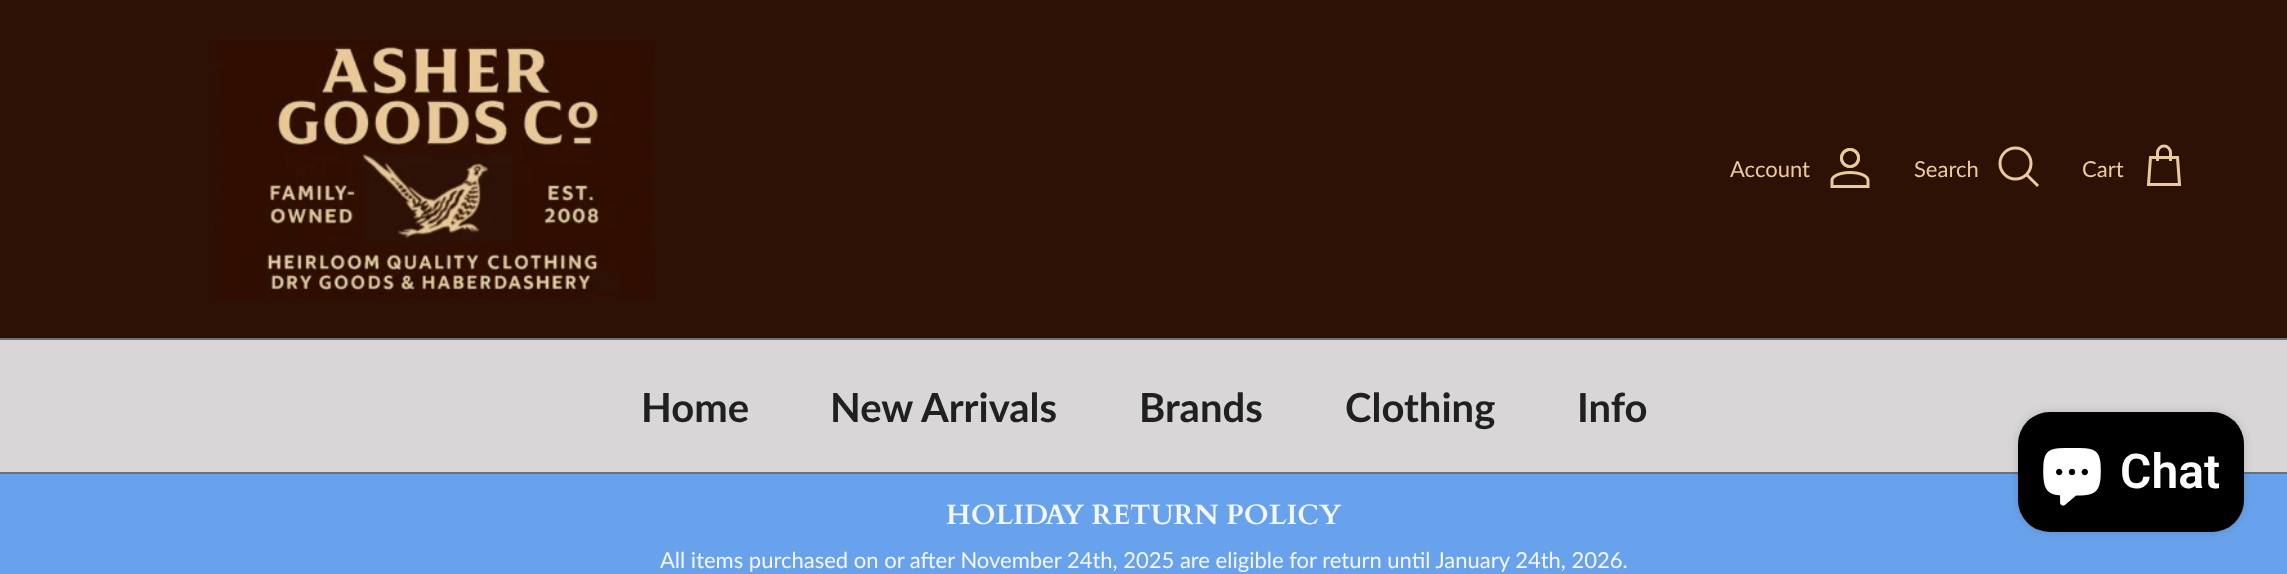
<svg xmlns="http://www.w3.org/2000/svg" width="2287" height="574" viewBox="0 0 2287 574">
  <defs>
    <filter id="blur1" x="-50%" y="-200%" width="200%" height="500%"><feGaussianBlur stdDeviation="5"/></filter>
  </defs>
  <rect width="100%" height="100%" fill="#69a2ec"/>
  <rect x="0" y="0" width="2287" height="338" fill="#2c1104"/>
  <rect x="0" y="338" width="2287" height="2" fill="#6d7175"/>
  <image x="215" y="40" width="440" height="258" href="img1.png"/>
  <text x="1730" y="177" font-family="Lato" font-size="22" fill="#eacb9d">Account</text>
  <image x="1830" y="148" width="40" height="40" href="img2.png"/>
  <text x="1914" y="177" font-family="Lato" font-size="22" fill="#eacb9d">Search</text>
  <circle cx="2015.5" cy="163.5" r="15.5" fill="none" stroke="#eacb9d" stroke-width="3"/>
  <path d="M2028 176L2037 185" fill="none" stroke="#eacb9d" stroke-width="3" stroke-linecap="square"/>
  <text x="2082" y="177" font-family="Lato" font-size="22" fill="#eacb9d">Cart</text>
  <path d="M2170.5 161V152.5C2170.5 149 2167.5 146 2164 146C2160.5 146 2157.5 149 2157.5 152.5V161M2150.5 157.5H2177.5L2179.5 184.5H2148.5Z" fill="none" stroke="#eacb9d" stroke-width="3"/>
  <rect x="0" y="472" width="2287" height="2" fill="#6d7175"/>
  <rect x="0" y="340" width="2287" height="132" fill="#d8d6d6"/>
  <text x="641" y="422" font-family="Lato" font-size="40" font-weight="bold" fill="#202020">Home</text>
  <text x="830" y="422" font-family="Lato" font-size="40" font-weight="bold" fill="#202020">New Arrivals</text>
  <text x="1139" y="422" font-family="Lato" font-size="40" font-weight="bold" fill="#202020">Brands</text>
  <text x="1345" y="422" font-family="Lato" font-size="40" font-weight="bold" fill="#202020">Clothing</text>
  <text x="1577" y="422" font-family="Lato" font-size="40" font-weight="bold" fill="#202020">Info</text>
  <rect x="2018" y="412" width="226" height="120" rx="32" fill="#000000" fill-opacity="0.15" filter="url(#blur1)"/>
  <rect x="2018" y="412" width="226" height="120" rx="32" fill="#000000"/>
  <image x="2043" y="448" width="58" height="58" href="img3.png"/>
  <text x="2120" y="488" font-family="Roboto" font-size="48" font-weight="600" fill="#ffffff">Chat</text>
  <text x="946" y="524" font-family="Cardo" font-size="28" font-weight="bold" fill="#f4f6f8">HOLIDAY RETURN POLICY</text>
  <text x="660" y="568" font-family="Lato" font-size="22" fill="#f4f6f8">All items purchased on or after November 24th, 2025 are eligible for return until January 24th, 2026.</text>
</svg>
